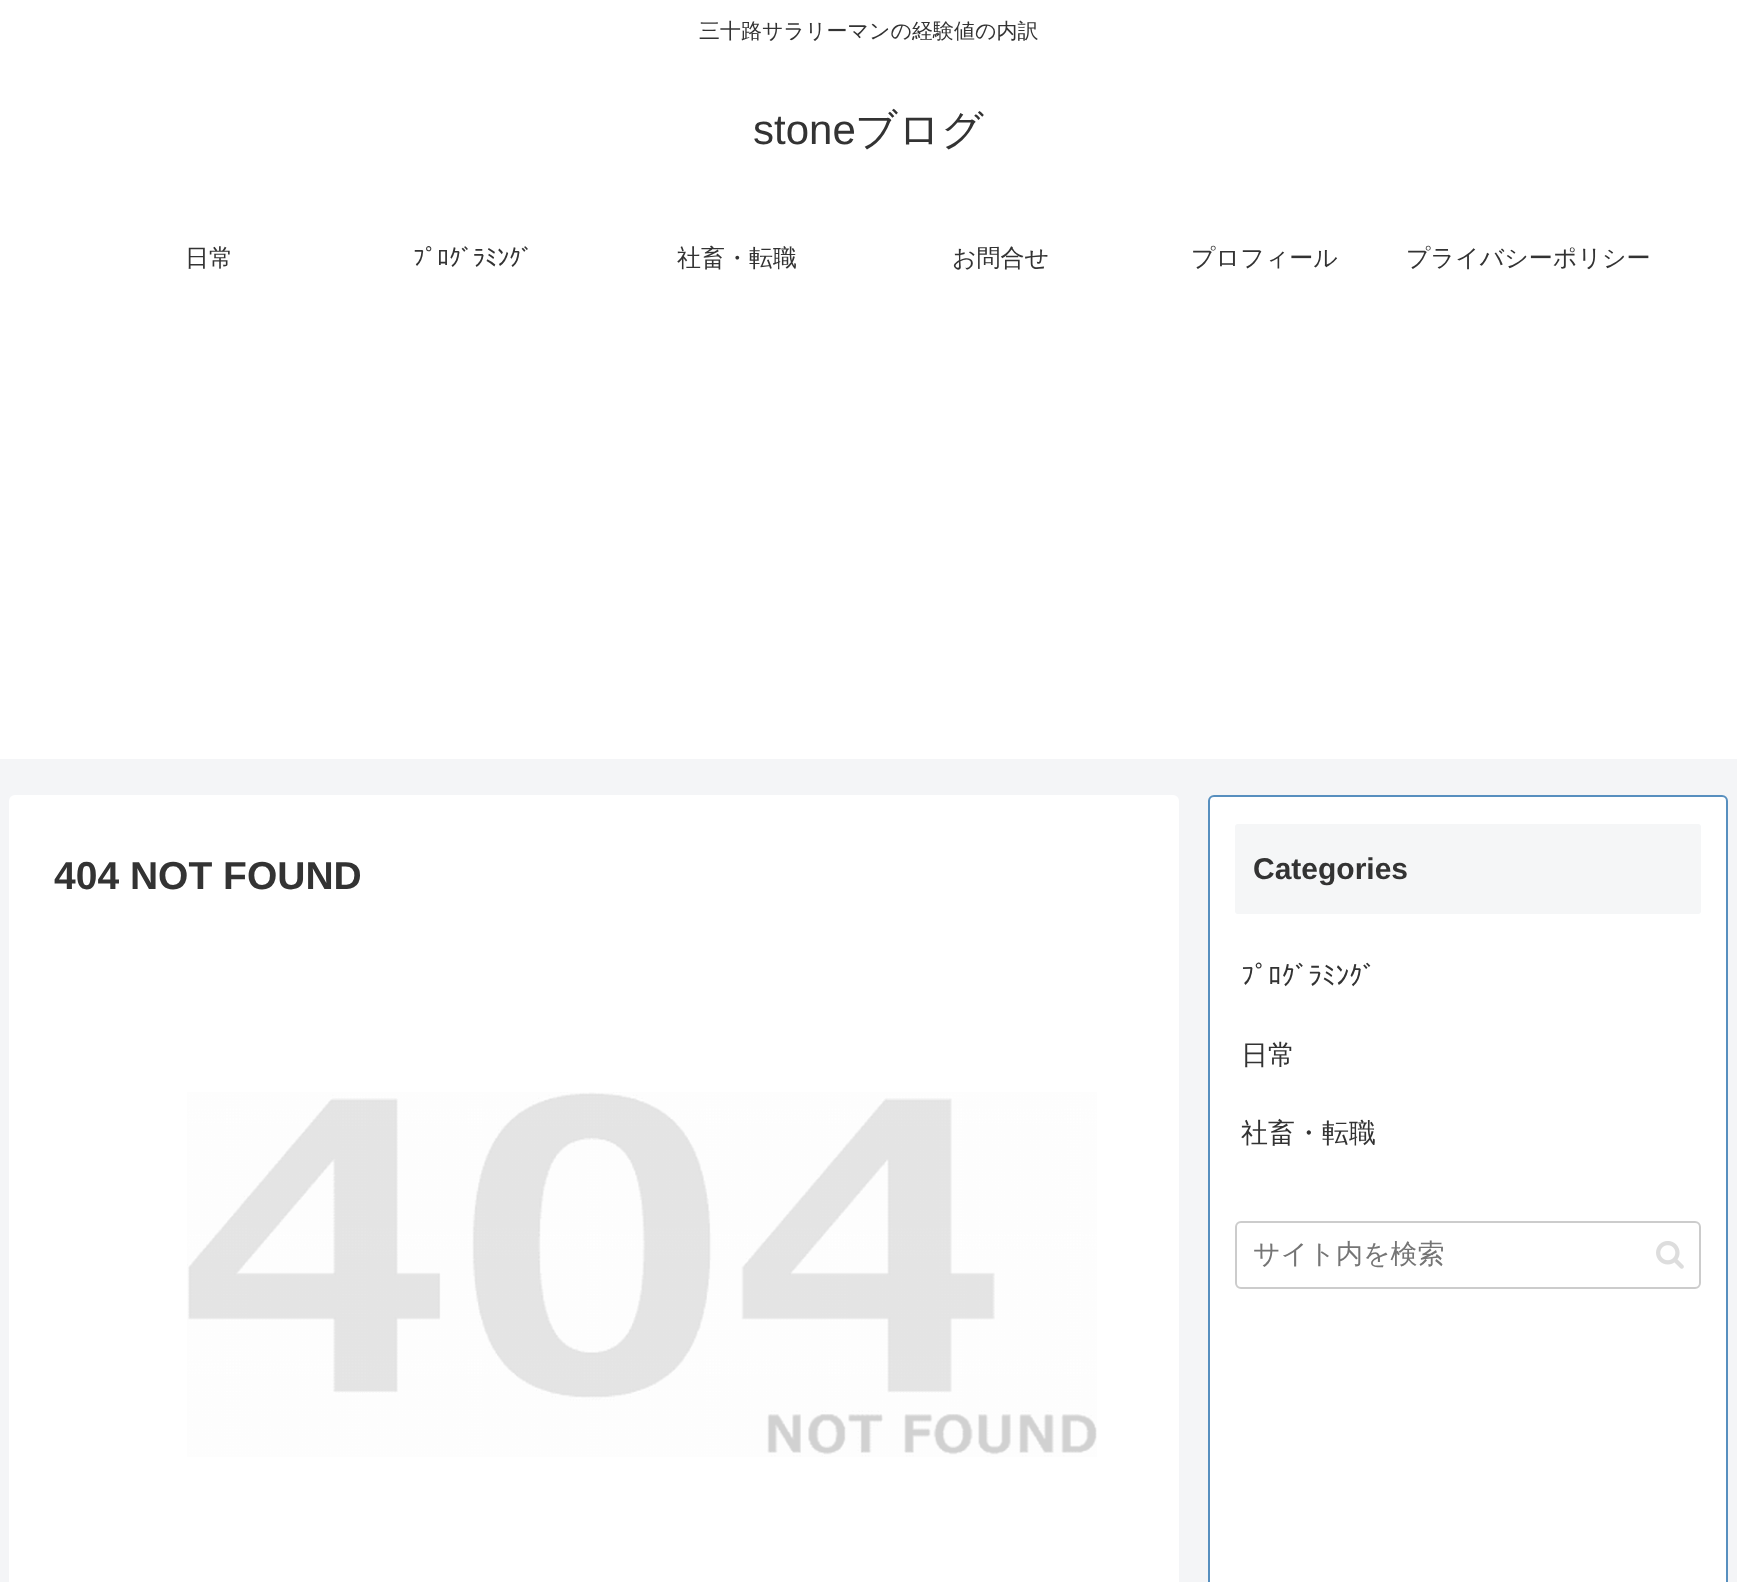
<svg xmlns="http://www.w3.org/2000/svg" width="1737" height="1582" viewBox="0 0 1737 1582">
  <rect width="100%" height="100%" fill="#f4f5f7"/>
  <rect x="0" y="0" width="1737" height="759" fill="#ffffff"/>
  <text x="699" y="38" font-family="WenQuanYi Zen Hei" font-size="21" font-weight="500" fill="#333333">三十路サラリーマンの経験値の内訳</text>
  <text x="753" y="144" font-family="Liberation Sans" font-size="42" fill="#333333">stone</text>
  <text x="855" y="144" font-family="WenQuanYi Zen Hei" font-size="42" font-weight="500" fill="#333333">ブログ</text>
  <text x="185" y="266" font-family="WenQuanYi Zen Hei" font-size="24" font-weight="500" fill="#333333">日常</text>
  <text x="413" y="266" font-family="IPAPGothic" font-size="24" fill="#333333">ﾌﾟﾛｸﾞﾗﾐﾝｸﾞ</text>
  <text x="677" y="266" font-family="WenQuanYi Zen Hei" font-size="24" font-weight="500" fill="#333333">社畜・転職</text>
  <text x="952" y="266" font-family="WenQuanYi Zen Hei" font-size="24" font-weight="500" fill="#333333">お問合せ</text>
  <text x="1191" y="266" font-family="WenQuanYi Zen Hei" font-size="24" font-weight="500" fill="#333333">プロフィール</text>
  <text x="1406" y="266" font-family="WenQuanYi Zen Hei" font-size="24" font-weight="500" fill="#333333">プライバシーポリシー</text>
  <rect x="9" y="795" width="1170" height="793" rx="6" fill="#ffffff"/>
  <text x="54" y="889" font-family="Liberation Sans" font-size="39" font-weight="bold" fill="#333333">404 NOT FOUND</text>
  <image x="187" y="1092" width="910" height="365" href="img1.png"/>
  <rect x="1209" y="796" width="518" height="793" rx="5" fill="#ffffff" stroke="#578fbf" stroke-width="2"/>
  <rect x="1235" y="824" width="466" height="90" rx="3" fill="#f5f6f7"/>
  <text x="1253" y="879" font-family="Liberation Sans" font-size="30" font-weight="bold" fill="#333333">Categories</text>
  <text x="1241" y="985" font-family="IPAPGothic" font-size="27" fill="#333333">ﾌﾟﾛｸﾞﾗﾐﾝｸﾞ</text>
  <text x="1241" y="1064" font-family="WenQuanYi Zen Hei" font-size="27" font-weight="500" fill="#333333">日常</text>
  <text x="1241" y="1142" font-family="WenQuanYi Zen Hei" font-size="27" font-weight="500" fill="#333333">社畜・転職</text>
  <rect x="1236" y="1222" width="464" height="66" rx="5" fill="none" stroke="#cccccc" stroke-width="2"/>
  <text x="1253" y="1263" font-family="WenQuanYi Zen Hei" font-size="27" font-weight="500" fill="#757575">サイト内を検索</text>
  <image x="1656" y="1241" width="28" height="28" href="img2.png"/>
</svg>
